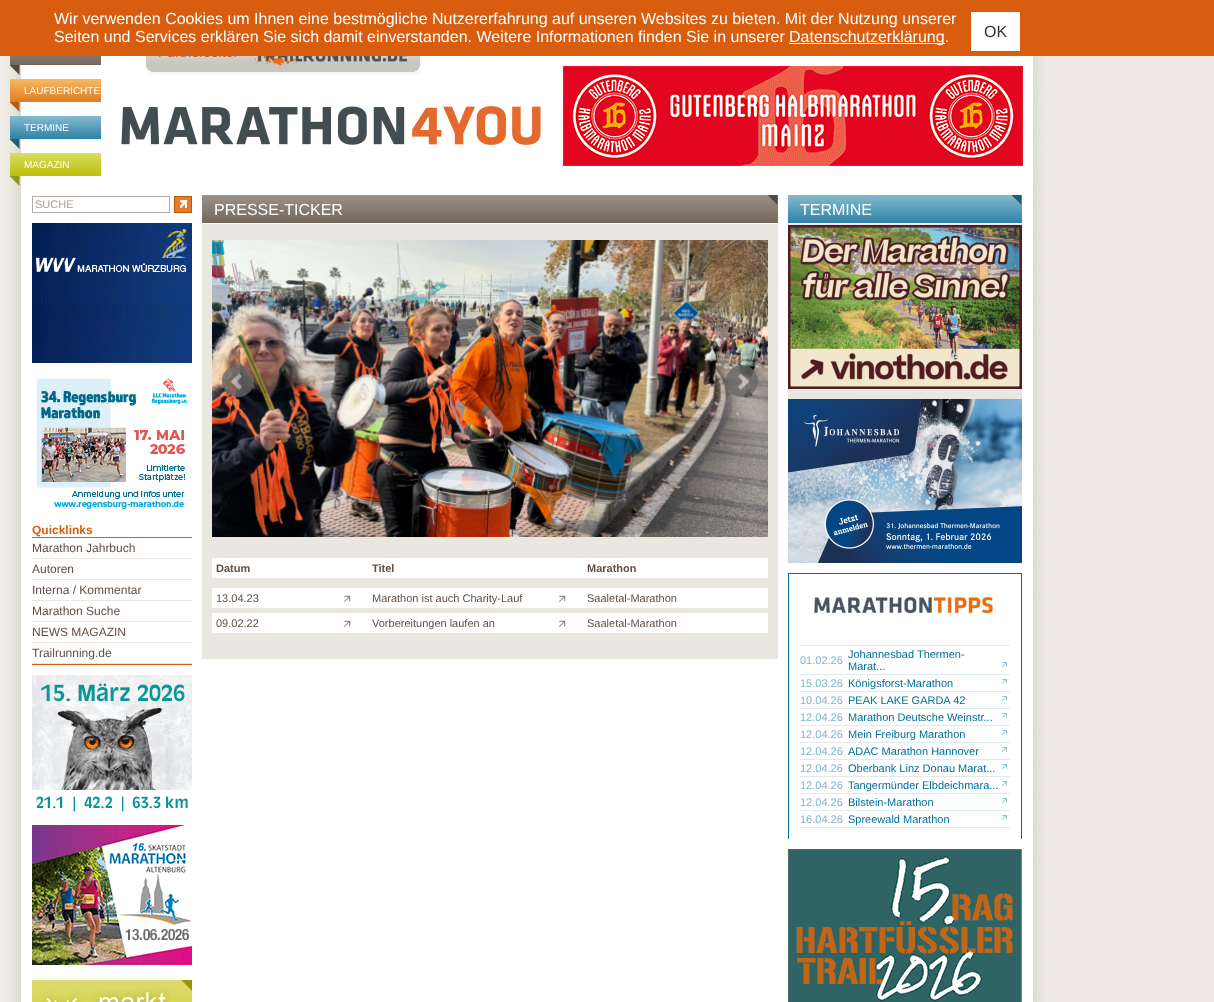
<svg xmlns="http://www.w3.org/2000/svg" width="1214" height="1002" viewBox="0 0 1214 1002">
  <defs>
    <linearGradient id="g1" gradientUnits="userSpaceOnUse" x1="56" y1="42" x2="56" y2="65"><stop offset="0" stop-color="#9c9188"/><stop offset="1" stop-color="#74665b"/></linearGradient>
    <linearGradient id="g2" gradientUnits="userSpaceOnUse" x1="56" y1="79" x2="56" y2="102"><stop offset="0" stop-color="#f5bb63"/><stop offset="1" stop-color="#e17a1e"/></linearGradient>
    <linearGradient id="g3" gradientUnits="userSpaceOnUse" x1="56" y1="116" x2="56" y2="139"><stop offset="0" stop-color="#84bbcd"/><stop offset="1" stop-color="#2f81a9"/></linearGradient>
    <linearGradient id="g4" gradientUnits="userSpaceOnUse" x1="56" y1="153" x2="56" y2="176"><stop offset="0" stop-color="#d7de61"/><stop offset="1" stop-color="#bdbf08"/></linearGradient>
    <linearGradient id="g5" gradientUnits="userSpaceOnUse" x1="490" y1="195" x2="490" y2="223"><stop offset="0" stop-color="#9c9188"/><stop offset="1" stop-color="#74665b"/></linearGradient>
    <linearGradient id="g6" gradientUnits="userSpaceOnUse" x1="905" y1="195" x2="905" y2="223"><stop offset="0" stop-color="#84bbcd"/><stop offset="1" stop-color="#2f81a9"/></linearGradient>
  </defs>
  <rect width="100%" height="100%" fill="#f0ebe8"/>
  <rect x="0" y="0" width="1214" height="56" fill="#d85d0e"/>
  <text x="54" y="24" font-family="Liberation Sans" font-size="16" fill="#ffffff">Wir verwenden Cookies um Ihnen eine bestmögliche Nutzererfahrung auf unseren Websites zu bieten. Mit der Nutzung unserer</text>
  <text x="54" y="42" font-family="Liberation Sans" font-size="16" fill="#ffffff">Seiten und Services erklären Sie sich damit einverstanden. Weitere Informationen finden Sie in unserer</text>
  <rect x="789" y="43" width="156" height="1" fill="#ffffff"/>
  <text x="789" y="42" font-family="Liberation Sans" font-size="16" fill="#ffffff">Datenschutzerklärung.</text>
  <rect x="971" y="12" width="49" height="39" fill="#ffffff"/>
  <text x="984" y="37" font-family="Liberation Sans" font-size="16" fill="#333333">OK</text>
  <image x="4" y="191" width="1041" height="811" href="img1.png"/>
  <image x="4" y="56" width="1044" height="135" href="img2.png"/>
  <rect x="10" y="56" width="91" height="9" fill="url(#g1)"/>
  <path d="M19.5 75L9.5 65H19.5Z" fill="#534942"/>
  <rect x="10" y="79" width="91" height="23" fill="url(#g2)"/>
  <text x="24" y="94" font-family="Liberation Sans" font-size="10" fill="#ffffff">LAUFBERICHTE</text>
  <path d="M19.5 112L9.5 102H19.5Z" fill="#ae6018"/>
  <rect x="10" y="116" width="91" height="23" fill="url(#g3)"/>
  <text x="24" y="131" font-family="Liberation Sans" font-size="10" fill="#ffffff">TERMINE</text>
  <path d="M19.5 149L9.5 139H19.5Z" fill="#235c77"/>
  <rect x="10" y="153" width="91" height="23" fill="url(#g4)"/>
  <text x="24" y="168" font-family="Liberation Sans" font-size="10" fill="#ffffff">MAGAZIN</text>
  <path d="M19.5 186L9.5 176H19.5Z" fill="#91971f"/>
  <image x="146" y="56" width="276" height="19" href="img3.png"/>
  <image x="121" y="106" width="420" height="39" href="img4.png"/>
  <image x="563" y="66" width="460" height="100" href="img5.png"/>
  <rect x="32.5" y="196.5" width="137" height="16" fill="none" stroke="#b7aea7"/>
  <text x="35" y="208" font-family="Liberation Sans" font-size="11" fill="#a89e96">SUCHE</text>
  <image x="174" y="196" width="18" height="17" href="img6.png"/>
  <image x="32" y="223" width="160" height="140" href="img7.png"/>
  <image x="36" y="378" width="152" height="131" href="img8.png"/>
  <rect x="32" y="664" width="160" height="1" fill="#d85d0e"/>
  <rect x="32" y="537" width="160" height="1" fill="#d85d0e"/>
  <text x="32" y="534" font-family="Liberation Sans" font-size="12" font-weight="bold" fill="#d85d0e">Quicklinks</text>
  <rect x="32" y="558" width="160" height="1" fill="#eae7e0"/>
  <text x="32" y="552" font-family="Liberation Sans" font-size="12" fill="#605046">Marathon Jahrbuch</text>
  <rect x="32" y="579" width="160" height="1" fill="#eae7e0"/>
  <text x="32" y="573" font-family="Liberation Sans" font-size="12" fill="#605046">Autoren</text>
  <rect x="32" y="600" width="160" height="1" fill="#eae7e0"/>
  <text x="32" y="594" font-family="Liberation Sans" font-size="12" fill="#605046">Interna / Kommentar</text>
  <rect x="32" y="621" width="160" height="1" fill="#eae7e0"/>
  <text x="32" y="615" font-family="Liberation Sans" font-size="12" fill="#605046">Marathon Suche</text>
  <rect x="32" y="642" width="160" height="1" fill="#eae7e0"/>
  <text x="32" y="636" font-family="Liberation Sans" font-size="12" fill="#605046">NEWS MAGAZIN</text>
  <rect x="32" y="663" width="160" height="1" fill="#eae7e0"/>
  <text x="32" y="657" font-family="Liberation Sans" font-size="12" fill="#605046">Trailrunning.de</text>
  <image x="32" y="675" width="160" height="137" href="img9.png"/>
  <image x="32" y="825" width="160" height="140" href="img10.png"/>
  <image x="32" y="980" width="160" height="22" href="img11.png"/>
  <rect x="202" y="224" width="576" height="435" fill="#eae7e0"/>
  <rect x="202" y="195" width="576" height="28" fill="url(#g5)"/>
  <path d="M777.5 205L767.5 195H777.5Z" fill="#534942"/>
  <text x="214" y="215" font-family="Liberation Sans" font-size="16" fill="#ffffff">PRESSE-TICKER</text>
  <image x="212" y="240" width="556" height="297" href="img12.png"/>
  <image x="222" y="365" width="32" height="32" href="img13.png"/>
  <image x="726" y="365" width="32" height="32" href="img14.png"/>
  <rect x="212" y="558" width="556" height="20" fill="#ffffff"/>
  <text x="216" y="572" font-family="Liberation Sans" font-size="11" font-weight="bold" fill="#605046">Datum</text>
  <text x="372" y="572" font-family="Liberation Sans" font-size="11" font-weight="bold" fill="#605046">Titel</text>
  <text x="587" y="572" font-family="Liberation Sans" font-size="11" font-weight="bold" fill="#605046">Marathon</text>
  <rect x="212" y="588" width="556" height="20" fill="#ffffff"/>
  <text x="216" y="602" font-family="Liberation Sans" font-size="11" fill="#605046">13.04.23</text>
  <image x="344" y="595" width="7" height="7" href="img15.png"/>
  <text x="372" y="602" font-family="Liberation Sans" font-size="11" fill="#605046">Marathon ist auch Charity-Lauf</text>
  <image x="559" y="595" width="7" height="7" href="img15.png"/>
  <text x="587" y="602" font-family="Liberation Sans" font-size="11" fill="#605046">Saaletal-Marathon</text>
  <rect x="212" y="613" width="556" height="20" fill="#ffffff"/>
  <text x="216" y="627" font-family="Liberation Sans" font-size="11" fill="#605046">09.02.22</text>
  <image x="344" y="620" width="7" height="7" href="img15.png"/>
  <text x="372" y="627" font-family="Liberation Sans" font-size="11" fill="#605046">Vorbereitungen laufen an</text>
  <image x="559" y="620" width="7" height="7" href="img15.png"/>
  <text x="587" y="627" font-family="Liberation Sans" font-size="11" fill="#605046">Saaletal-Marathon</text>
  <rect x="788" y="224" width="234" height="175" fill="#eae7e0"/>
  <rect x="788" y="195" width="234" height="28" fill="url(#g6)"/>
  <path d="M1021.5 205L1011.5 195H1021.5Z" fill="#235c77"/>
  <text x="800" y="215" font-family="Liberation Sans" font-size="16" fill="#ffffff">TERMINE</text>
  <image x="788" y="225" width="234" height="164" href="img16.png"/>
  <image x="788" y="399" width="234" height="164" href="img17.png"/>
  <rect x="788" y="573" width="234" height="266" fill="#006e97"/>
  <rect x="789" y="574" width="232" height="265" fill="#ffffff"/>
  <image x="807" y="592" width="192" height="24" href="img18.png"/>
  <rect x="800" y="645" width="210" height="1" fill="#dbeced"/>
  <text x="800" y="664" font-family="Liberation Sans" font-size="11" fill="#7eb6c9">01.02.26</text>
  <text x="848" y="658" font-family="Liberation Sans" font-size="11" fill="#006e97">Johannesbad Thermen-</text>
  <text x="848" y="670" font-family="Liberation Sans" font-size="11" fill="#006e97">Marat...</text>
  <image x="1002" y="662" width="5" height="5" href="img19.png"/>
  <rect x="800" y="674" width="210" height="1" fill="#dbeced"/>
  <text x="800" y="687" font-family="Liberation Sans" font-size="11" fill="#7eb6c9">15.03.26</text>
  <text x="848" y="687" font-family="Liberation Sans" font-size="11" fill="#006e97">Königsforst-Marathon</text>
  <image x="1002" y="679" width="5" height="5" href="img19.png"/>
  <rect x="800" y="691" width="210" height="1" fill="#dbeced"/>
  <text x="800" y="704" font-family="Liberation Sans" font-size="11" fill="#7eb6c9">10.04.26</text>
  <text x="848" y="704" font-family="Liberation Sans" font-size="11" fill="#006e97">PEAK LAKE GARDA 42</text>
  <image x="1002" y="696" width="5" height="5" href="img19.png"/>
  <rect x="800" y="708" width="210" height="1" fill="#dbeced"/>
  <text x="800" y="721" font-family="Liberation Sans" font-size="11" fill="#7eb6c9">12.04.26</text>
  <text x="848" y="721" font-family="Liberation Sans" font-size="11" fill="#006e97">Marathon Deutsche Weinstr...</text>
  <image x="1002" y="713" width="5" height="5" href="img19.png"/>
  <rect x="800" y="725" width="210" height="1" fill="#dbeced"/>
  <text x="800" y="738" font-family="Liberation Sans" font-size="11" fill="#7eb6c9">12.04.26</text>
  <text x="848" y="738" font-family="Liberation Sans" font-size="11" fill="#006e97">Mein Freiburg Marathon</text>
  <image x="1002" y="730" width="5" height="5" href="img19.png"/>
  <rect x="800" y="742" width="210" height="1" fill="#dbeced"/>
  <text x="800" y="755" font-family="Liberation Sans" font-size="11" fill="#7eb6c9">12.04.26</text>
  <text x="848" y="755" font-family="Liberation Sans" font-size="11" fill="#006e97">ADAC Marathon Hannover</text>
  <image x="1002" y="747" width="5" height="5" href="img19.png"/>
  <rect x="800" y="759" width="210" height="1" fill="#dbeced"/>
  <text x="800" y="772" font-family="Liberation Sans" font-size="11" fill="#7eb6c9">12.04.26</text>
  <text x="848" y="772" font-family="Liberation Sans" font-size="11" fill="#006e97">Oberbank Linz Donau Marat...</text>
  <image x="1002" y="764" width="5" height="5" href="img19.png"/>
  <rect x="800" y="776" width="210" height="1" fill="#dbeced"/>
  <text x="800" y="789" font-family="Liberation Sans" font-size="11" fill="#7eb6c9">12.04.26</text>
  <text x="848" y="789" font-family="Liberation Sans" font-size="11" fill="#006e97">Tangermünder Elbdeichmara...</text>
  <image x="1002" y="781" width="5" height="5" href="img19.png"/>
  <rect x="800" y="793" width="210" height="1" fill="#dbeced"/>
  <text x="800" y="806" font-family="Liberation Sans" font-size="11" fill="#7eb6c9">12.04.26</text>
  <text x="848" y="806" font-family="Liberation Sans" font-size="11" fill="#006e97">Bilstein-Marathon</text>
  <image x="1002" y="798" width="5" height="5" href="img19.png"/>
  <rect x="800" y="810" width="210" height="1" fill="#dbeced"/>
  <text x="800" y="823" font-family="Liberation Sans" font-size="11" fill="#7eb6c9">16.04.26</text>
  <text x="848" y="823" font-family="Liberation Sans" font-size="11" fill="#006e97">Spreewald Marathon</text>
  <image x="1002" y="815" width="5" height="5" href="img19.png"/>
  <rect x="800" y="827" width="210" height="1" fill="#dbeced"/>
  <image x="788" y="849" width="234" height="153" href="img20.png"/>
</svg>
